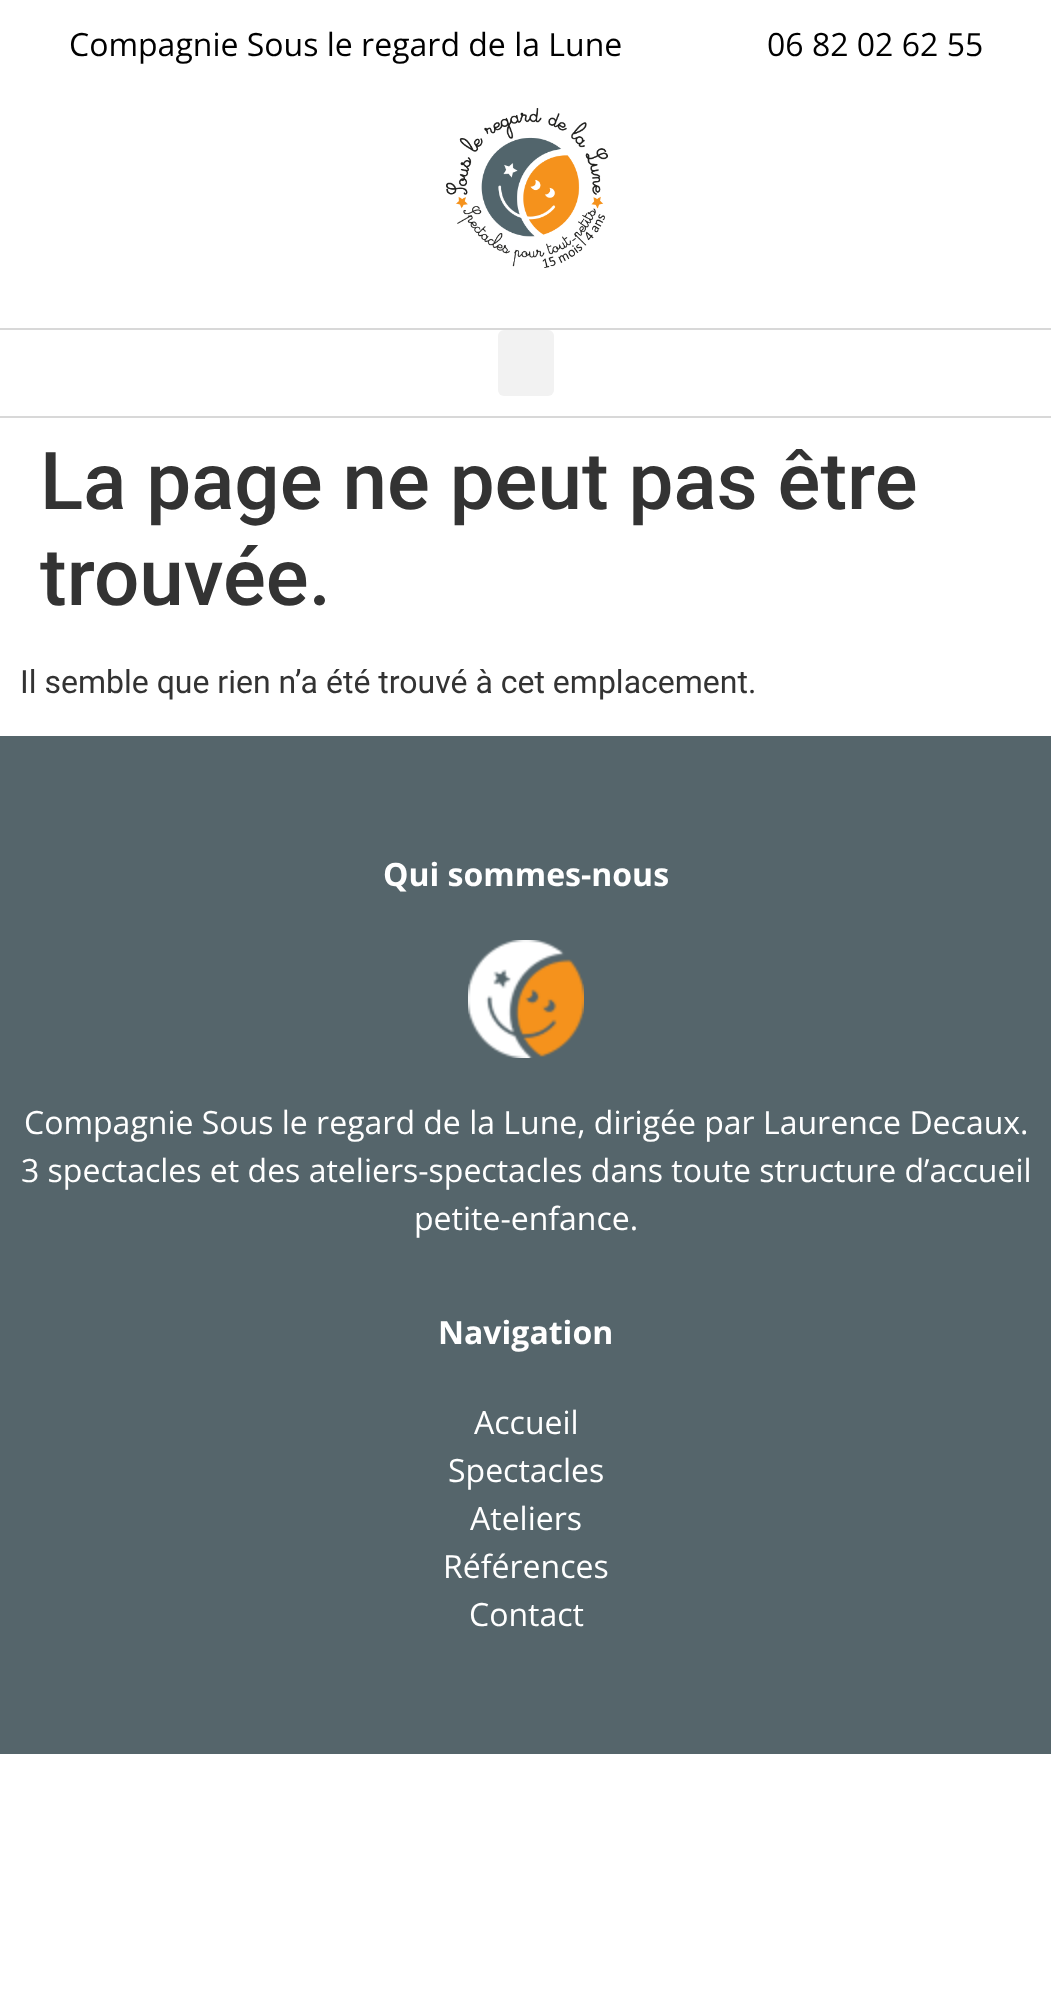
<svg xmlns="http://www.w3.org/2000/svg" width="1051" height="2002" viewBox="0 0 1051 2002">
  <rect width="100%" height="100%" fill="#ffffff"/>
  <text x="69" y="56" font-family="Open Sans" font-size="32" fill="#000000">Compagnie Sous le regard de la Lune</text>
  <text x="767" y="56" font-family="Open Sans" font-size="32" fill="#000000">06 82 02 62 55</text>
  <image x="446" y="108" width="162" height="160" href="img1.png"/>
  <rect x="0" y="328" width="1051" height="2" fill="#d8d8d8"/>
  <rect x="0" y="416" width="1051" height="2" fill="#d8d8d8"/>
  <rect x="498" y="330" width="56" height="66" rx="6" fill="#f2f2f2"/>
  <text x="40" y="509" font-family="Roboto" font-size="80" font-weight="500" fill="#333333">La page ne peut pas être</text>
  <text x="40" y="605" font-family="Roboto" font-size="80" font-weight="500" fill="#333333">trouvée.</text>
  <text x="20" y="693" font-family="Roboto" font-size="32" fill="#333333">Il semble que rien n’a été trouvé à cet emplacement.</text>
  <rect x="0" y="736" width="1051" height="1018" fill="#55656b"/>
  <text x="383" y="886" font-family="Open Sans" font-size="32" font-weight="bold" fill="#ffffff">Qui sommes-nous</text>
  <image x="468" y="940" width="116" height="118" href="img2.png"/>
  <text x="24" y="1134" font-family="Open Sans" font-size="32" fill="#ffffff">Compagnie Sous le regard de la Lune, dirigée par Laurence Decaux.</text>
  <text x="21" y="1182" font-family="Open Sans" font-size="32" fill="#ffffff">3 spectacles et des ateliers-spectacles dans toute structure d’accueil</text>
  <text x="414" y="1230" font-family="Open Sans" font-size="32" fill="#ffffff">petite-enfance.</text>
  <text x="438" y="1344" font-family="Open Sans" font-size="32" font-weight="bold" fill="#ffffff">Navigation</text>
  <text x="474" y="1434" font-family="Open Sans" font-size="32" fill="#ffffff">Accueil</text>
  <text x="448" y="1482" font-family="Open Sans" font-size="32" fill="#ffffff">Spectacles</text>
  <text x="470" y="1530" font-family="Open Sans" font-size="32" fill="#ffffff">Ateliers</text>
  <text x="443" y="1578" font-family="Open Sans" font-size="32" fill="#ffffff">Références</text>
  <text x="469" y="1626" font-family="Open Sans" font-size="32" fill="#ffffff">Contact</text>
</svg>
